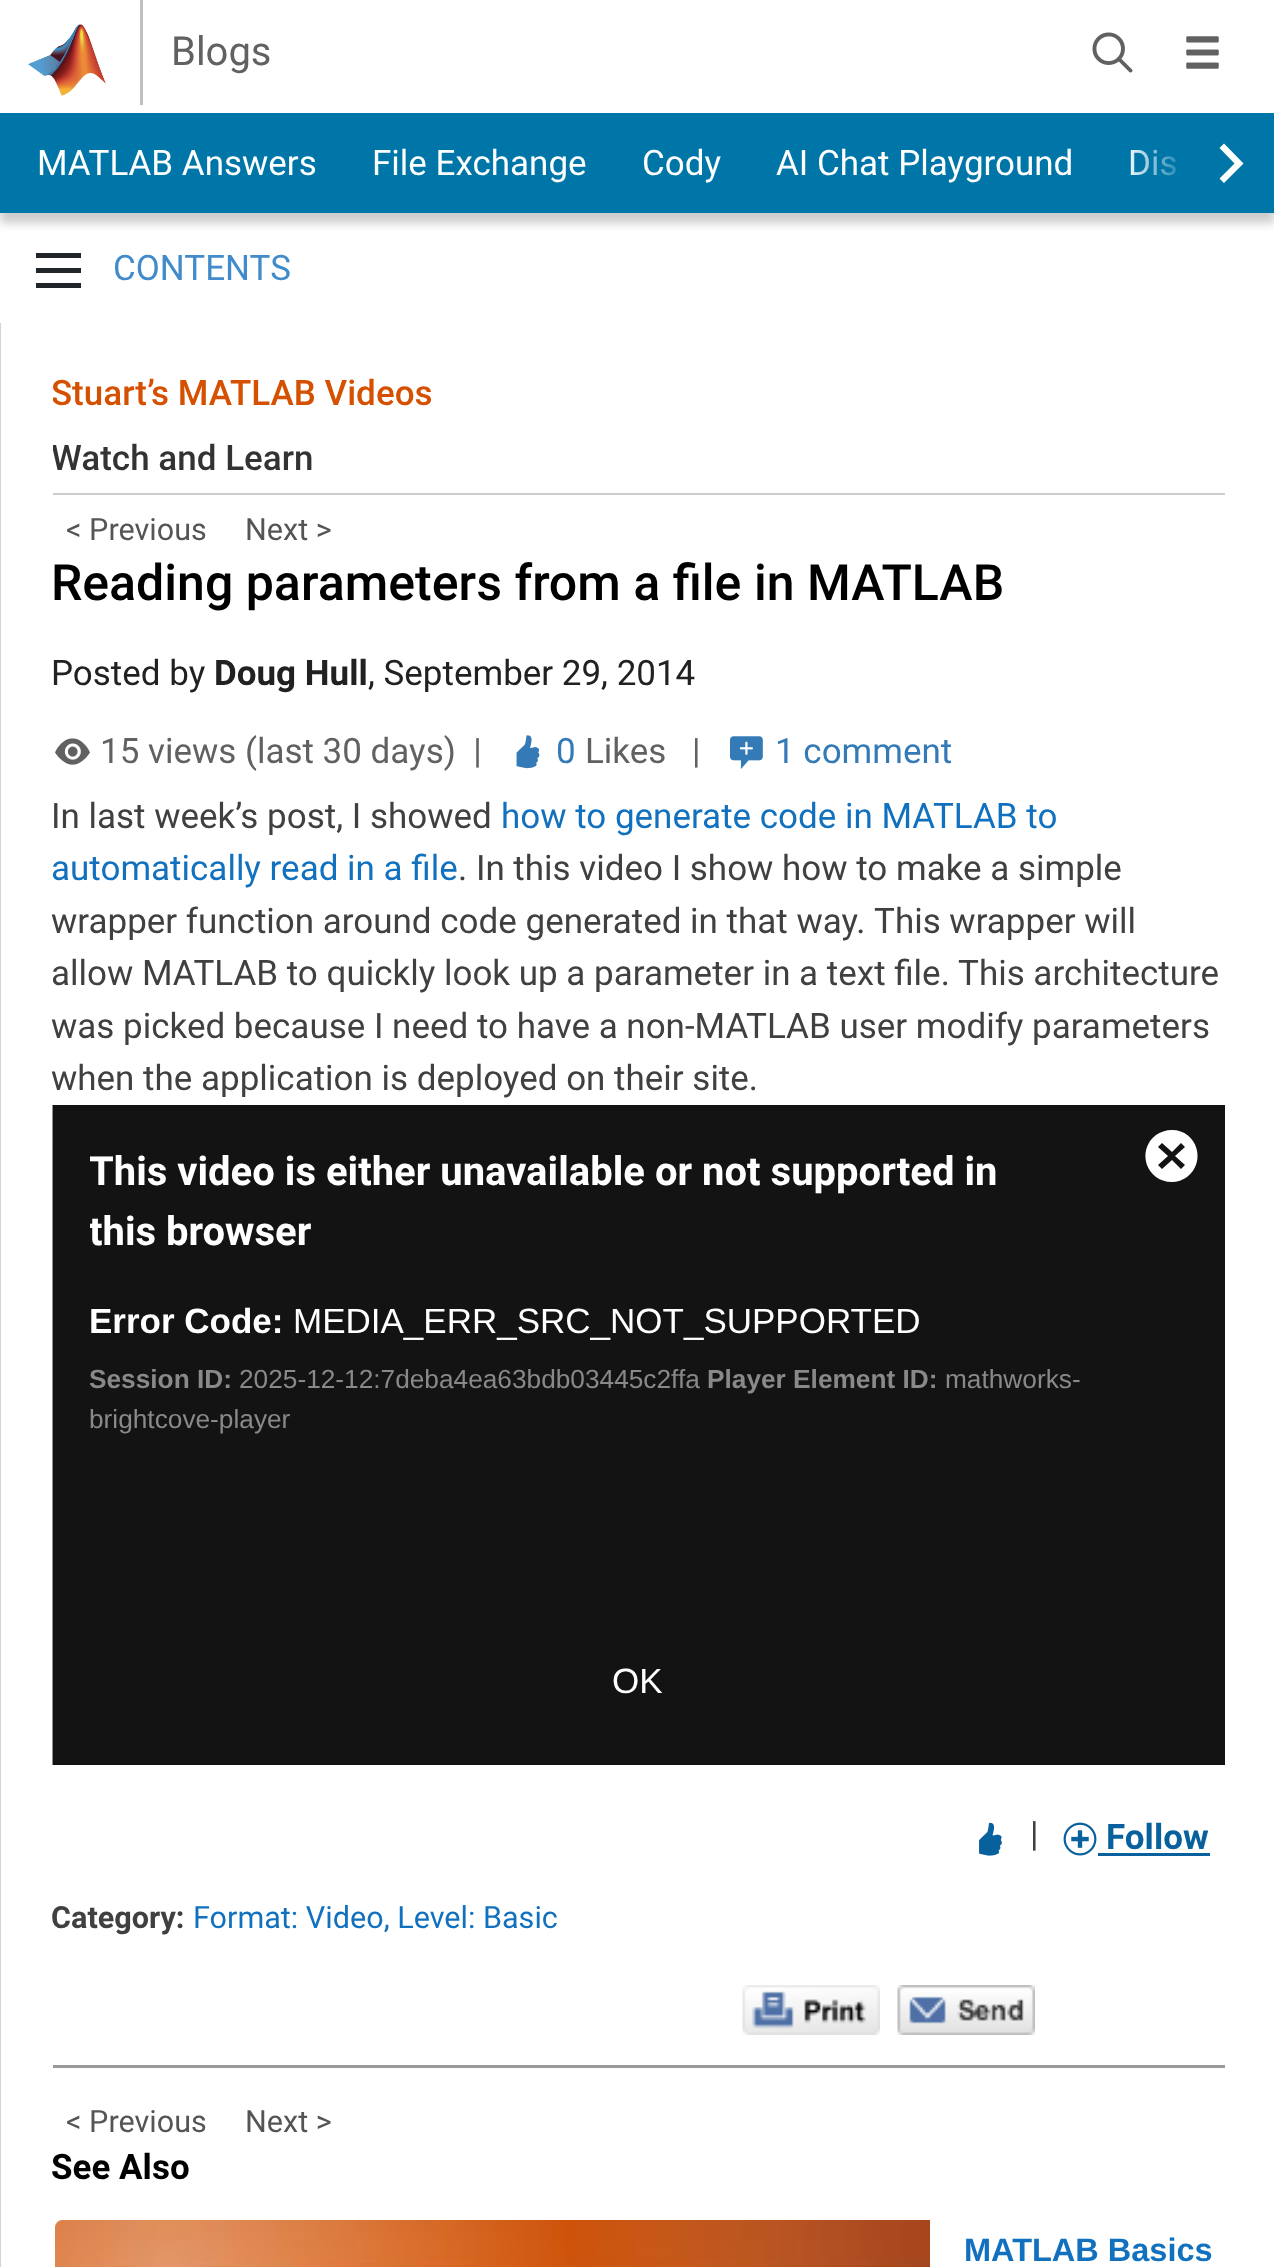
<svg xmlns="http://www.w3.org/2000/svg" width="1274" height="2267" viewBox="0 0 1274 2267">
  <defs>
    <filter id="blur1" x="-50%" y="-200%" width="200%" height="500%"><feGaussianBlur stdDeviation="5"/></filter>
    <linearGradient id="g1" gradientUnits="userSpaceOnUse" x1="1125" y1="163" x2="1250" y2="163"><stop offset="0" stop-color="#0076a8" stop-opacity="0"/><stop offset="0.5" stop-color="#0076a8"/><stop offset="1" stop-color="#0076a8"/></linearGradient>
    <clipPath id="clip1"><rect x="53" y="373" width="1172" height="122"/></clipPath>
    <clipPath id="clip2"><rect x="90" y="1143" width="1098" height="470"/></clipPath>
  </defs>
  <rect width="100%" height="100%" fill="#ffffff"/>
  <rect x="140" y="0" width="3" height="105" fill="#bfbfbf"/>
  <image x="28" y="24" width="78" height="72" href="img1.png"/>
  <text x="171" y="65" font-family="Roboto" font-size="40" fill="#616161">Blogs</text>
  <image x="1092" y="32" width="41" height="41" href="img2.png"/>
  <image x="1186" y="36" width="33" height="33" href="img3.png"/>
  <rect x="0" y="123" width="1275" height="100" fill="#000000" fill-opacity="0.2" filter="url(#blur1)"/>
  <rect x="0" y="113" width="1187" height="100" fill="#0076a8"/>
  <text x="37" y="175" font-family="Roboto" font-size="35" fill="#ffffff">MATLAB Answers</text>
  <text x="372" y="175" font-family="Roboto" font-size="35" fill="#ffffff">File Exchange</text>
  <text x="642" y="175" font-family="Roboto" font-size="35" fill="#ffffff">Cody</text>
  <text x="776" y="175" font-family="Roboto" font-size="35" fill="#ffffff">AI Chat Playground</text>
  <text x="1128" y="175" font-family="Roboto" font-size="35" fill="#ffffff">Dis</text>
  <rect x="1131" y="113" width="114" height="100" fill="url(#g1)"/>
  <path d="M1224 143.5L1219.5 148L1234.5 163.5L1219.5 178.5L1224 183L1243.5 163.5Z" fill="#ffffff"/>
  <rect x="1245" y="113" width="29" height="100" fill="#0076a8"/>
  <path d="M81 288H36V283H81ZM81 273H36V268H81ZM81 258H36V253H81Z" fill="#212529"/>
  <text x="113" y="280" font-family="Roboto" font-size="35" fill="#428bca">CONTENTS</text>
  <rect x="0" y="323" width="1" height="1944" fill="#d4d4d4"/>
  <rect x="53" y="493" width="1172" height="2" fill="#cccccc"/>
  <g clip-path="url(#clip1)">
    <text x="51" y="405" font-family="Roboto" font-size="35" font-weight="500" fill="#d55000">Stuart’s MATLAB Videos</text>
    <text x="51" y="470" font-family="Roboto" font-size="35" font-weight="500" fill="#333333">Watch and Learn</text>
  </g>
  <text x="66" y="540" font-family="Roboto" font-size="30.6" fill="#555555">&lt; Previous</text>
  <text x="245" y="540" font-family="Roboto" font-size="30.6" fill="#555555">Next &gt;</text>
  <text x="51" y="600" font-family="Roboto" font-size="50" font-weight="500" fill="#000000">Reading parameters from a file in MATLAB</text>
  <text x="51" y="685" font-family="Roboto" font-size="35" fill="#212121">Posted by</text>
  <text x="214" y="685" font-family="Roboto" font-size="35" font-weight="bold" fill="#212121">Doug Hull</text>
  <text x="368" y="685" font-family="Roboto" font-size="35" fill="#212121">, September 29, 2014</text>
  <image x="55" y="738" width="35" height="27" href="img4.png"/>
  <text x="100" y="763" font-family="Roboto" font-size="35" fill="#616161" xml:space="preserve">15 views (last 30 days)  |</text>
  <image x="516" y="735" width="24" height="34" href="img5.png"/>
  <text x="556" y="763" font-family="Roboto" font-size="35" fill="#337ab7">0</text>
  <text x="585" y="763" font-family="Roboto" font-size="35" fill="#616161">Likes</text>
  <text x="692" y="763" font-family="Roboto" font-size="35" fill="#616161">|</text>
  <image x="730" y="736" width="33" height="33" href="img6.png"/>
  <text x="775" y="763" font-family="Roboto" font-size="35" fill="#337ab7">1 comment</text>
  <text x="51" y="828" font-family="Roboto" font-size="35" fill="#404040">In last week’s post, I showed</text>
  <text x="501" y="828" font-family="Roboto" font-size="35" fill="#1171be">how to generate code in MATLAB to</text>
  <text x="51" y="880" font-family="Roboto" font-size="35" fill="#1171be">automatically read in a file</text>
  <text x="458" y="880" font-family="Roboto" font-size="35" fill="#404040">. In this video I show how to make a simple</text>
  <text x="51" y="933" font-family="Roboto" font-size="35" fill="#404040">wrapper function around code generated in that way.</text>
  <text x="874" y="933" font-family="Roboto" font-size="35" fill="#404040">This wrapper will</text>
  <text x="51" y="985" font-family="Roboto" font-size="35" fill="#404040">allow MATLAB to quickly look up a parameter in a text file.</text>
  <text x="958" y="985" font-family="Roboto" font-size="35" fill="#404040">This architecture</text>
  <text x="51" y="1038" font-family="Roboto" font-size="35" fill="#404040">was picked because I need to have a non-MATLAB user modify parameters</text>
  <text x="51" y="1090" font-family="Roboto" font-size="35" fill="#404040">when the application is deployed on their site.</text>
  <image x="52" y="1105" width="1" height="660" href="img7.png"/>
  <image x="52" y="1105" width="1" height="660" href="img8.png"/>
  <rect x="53" y="1105" width="1172" height="660" fill="#131313"/>
  <g clip-path="url(#clip2)">
    <text x="89" y="1185" font-family="Roboto" font-size="40" font-weight="bold" fill="#ffffff">This video is either unavailable or not supported in</text>
    <text x="89" y="1245" font-family="Roboto" font-size="40" font-weight="bold" fill="#ffffff">this browser</text>
  </g>
  <text x="89" y="1333" font-family="Liberation Sans" font-size="35" font-weight="bold" fill="#ffffff">Error Code:</text>
  <text x="293" y="1333" font-family="Liberation Sans" font-size="35" fill="#ffffff">MEDIA_ERR_SRC_NOT_SUPPORTED</text>
  <text x="89" y="1388" font-family="Liberation Sans" font-size="26.25" font-weight="bold" fill="#898989">Session ID:</text>
  <text x="239" y="1388" font-family="Liberation Sans" font-size="26.25" fill="#898989">2025-12-12:7deba4ea63bdb03445c2ffa</text>
  <text x="707" y="1388" font-family="Liberation Sans" font-size="26.25" font-weight="bold" fill="#898989">Player Element ID:</text>
  <text x="945" y="1388" font-family="Liberation Sans" font-size="26.25" fill="#898989">mathworks-</text>
  <text x="89" y="1428" font-family="Liberation Sans" font-size="26.25" fill="#898989">brightcove-player</text>
  <path d="M1172 1130C1166 1130 1160 1132 1156 1135C1136 1150 1146 1182 1172 1182C1177 1182 1183 1180 1187 1177C1207 1162 1197 1130 1172 1130ZM1185 1165L1181 1169L1172 1160L1162 1169L1158 1165L1168 1156L1158 1147L1162 1143L1172 1152L1181 1143L1185 1147L1175 1156Z" fill="#ffffff"/>
  <text x="612" y="1693" font-family="Liberation Sans" font-size="35" fill="#ffffff">OK</text>
  <image x="979" y="1822" width="23" height="34" href="img9.png"/>
  <text x="1030" y="1846" font-family="Roboto" font-size="35" fill="#404040">|</text>
  <image x="1063" y="1822" width="34" height="34" href="img10.png"/>
  <text x="1106" y="1849" font-family="Roboto" font-size="35" font-weight="bold" fill="#08609d">Follow</text>
  <rect x="1098" y="1853" width="112" height="3" fill="#08609d"/>
  <rect x="53" y="2065" width="1172" height="3" fill="#999999"/>
  <text x="51" y="1928" font-family="Roboto" font-size="30.6" font-weight="bold" fill="#404040">Category:</text>
  <text x="193" y="1928" font-family="Roboto" font-size="30.6" fill="#1171be">Format: Video, Level: Basic</text>
  <image x="742" y="1985" width="138" height="50" href="img11.png"/>
  <image x="897" y="1985" width="138" height="50" href="img12.png"/>
  <text x="66" y="2132" font-family="Roboto" font-size="30.6" fill="#555555">&lt; Previous</text>
  <text x="245" y="2132" font-family="Roboto" font-size="30.6" fill="#555555">Next &gt;</text>
  <text x="51" y="2179" font-family="Roboto" font-size="35" font-weight="bold" fill="#000000">See Also</text>
  <image x="55" y="2220" width="875" height="47" href="img13.png"/>
  <text x="964" y="2261" font-family="Liberation Sans" font-size="32.5" font-weight="bold" fill="#1171be">MATLAB Basics</text>
</svg>
